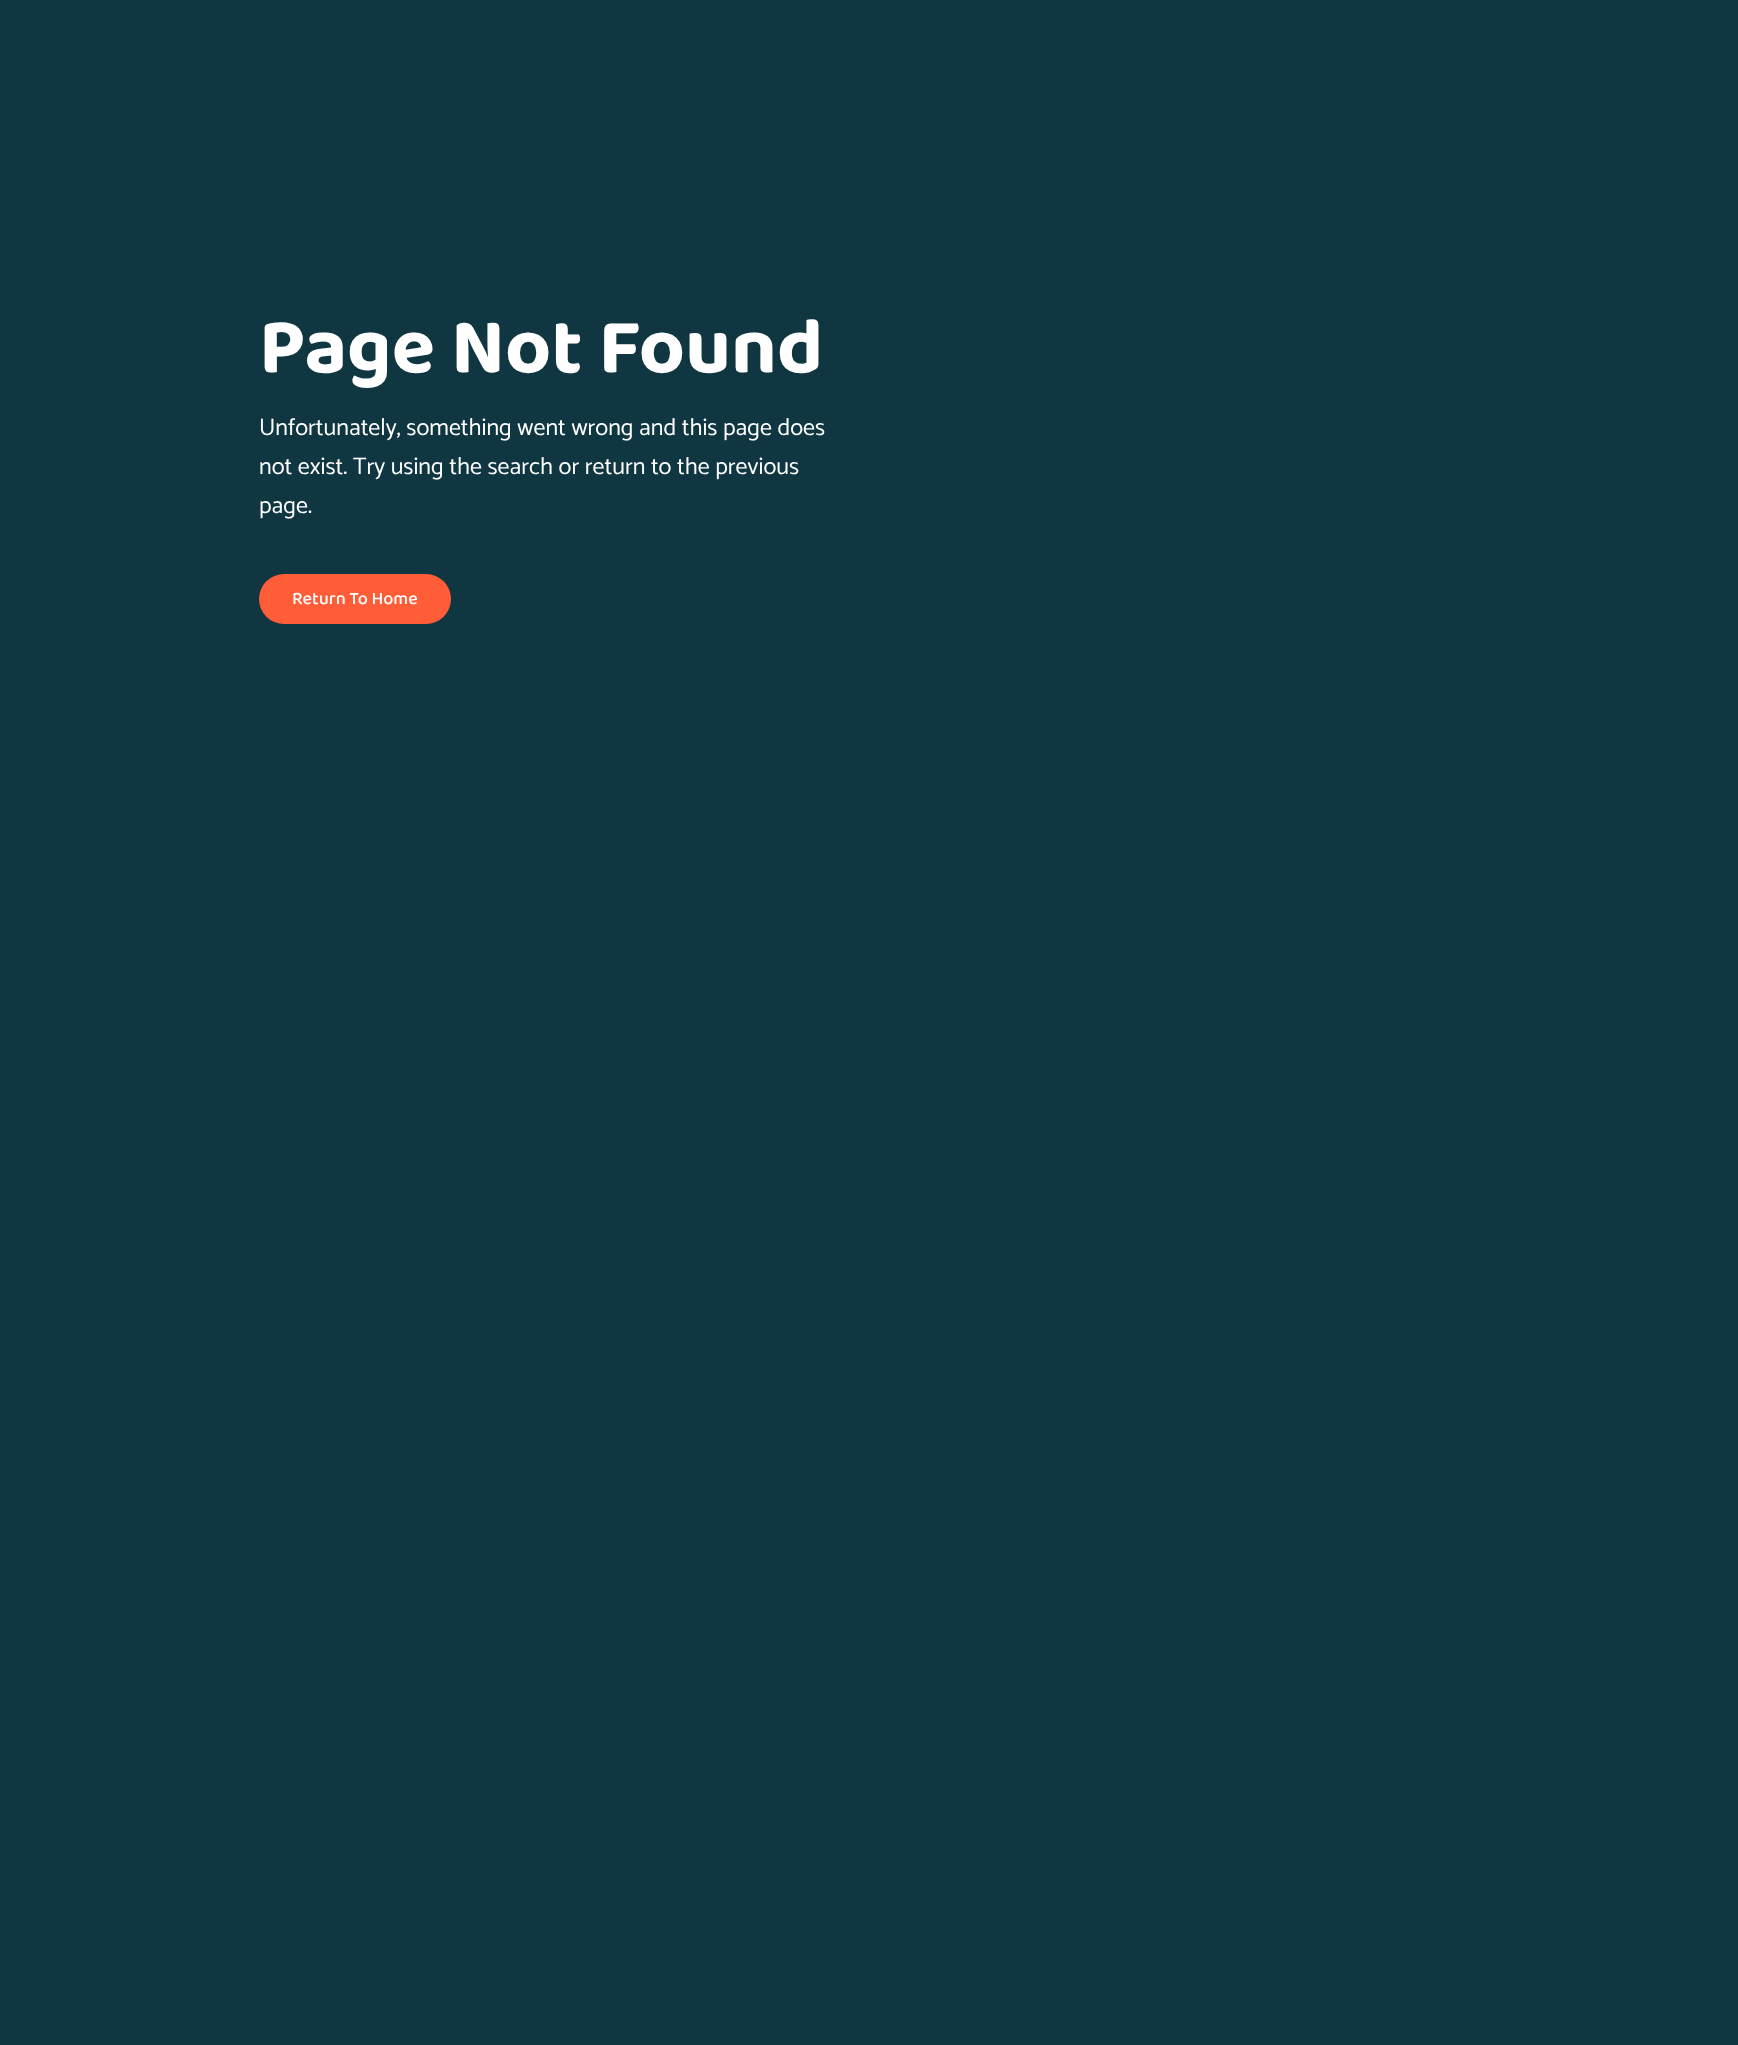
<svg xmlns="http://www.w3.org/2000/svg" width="1738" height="2045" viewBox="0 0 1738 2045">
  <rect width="100%" height="100%" fill="#103741"/>
  <text x="259" y="372" font-family="'Baloo 2'" font-size="80" font-weight="bold" fill="#ffffff">Page Not Found</text>
  <text x="259" y="435" font-family="Catamaran" font-size="24" fill="#ffffff">Unfortunately, something went wrong and this page does</text>
  <text x="259" y="474" font-family="Catamaran" font-size="24" fill="#ffffff">not exist. Try using the search or return to the previous</text>
  <text x="259" y="513" font-family="Catamaran" font-size="24" fill="#ffffff">page.</text>
  <rect x="259" y="574" width="192" height="50" rx="25" fill="#fe5d37"/>
  <text x="292" y="604" font-family="'Baloo 2'" font-size="18" font-weight="500" fill="#ffffff">Return To Home</text>
</svg>
